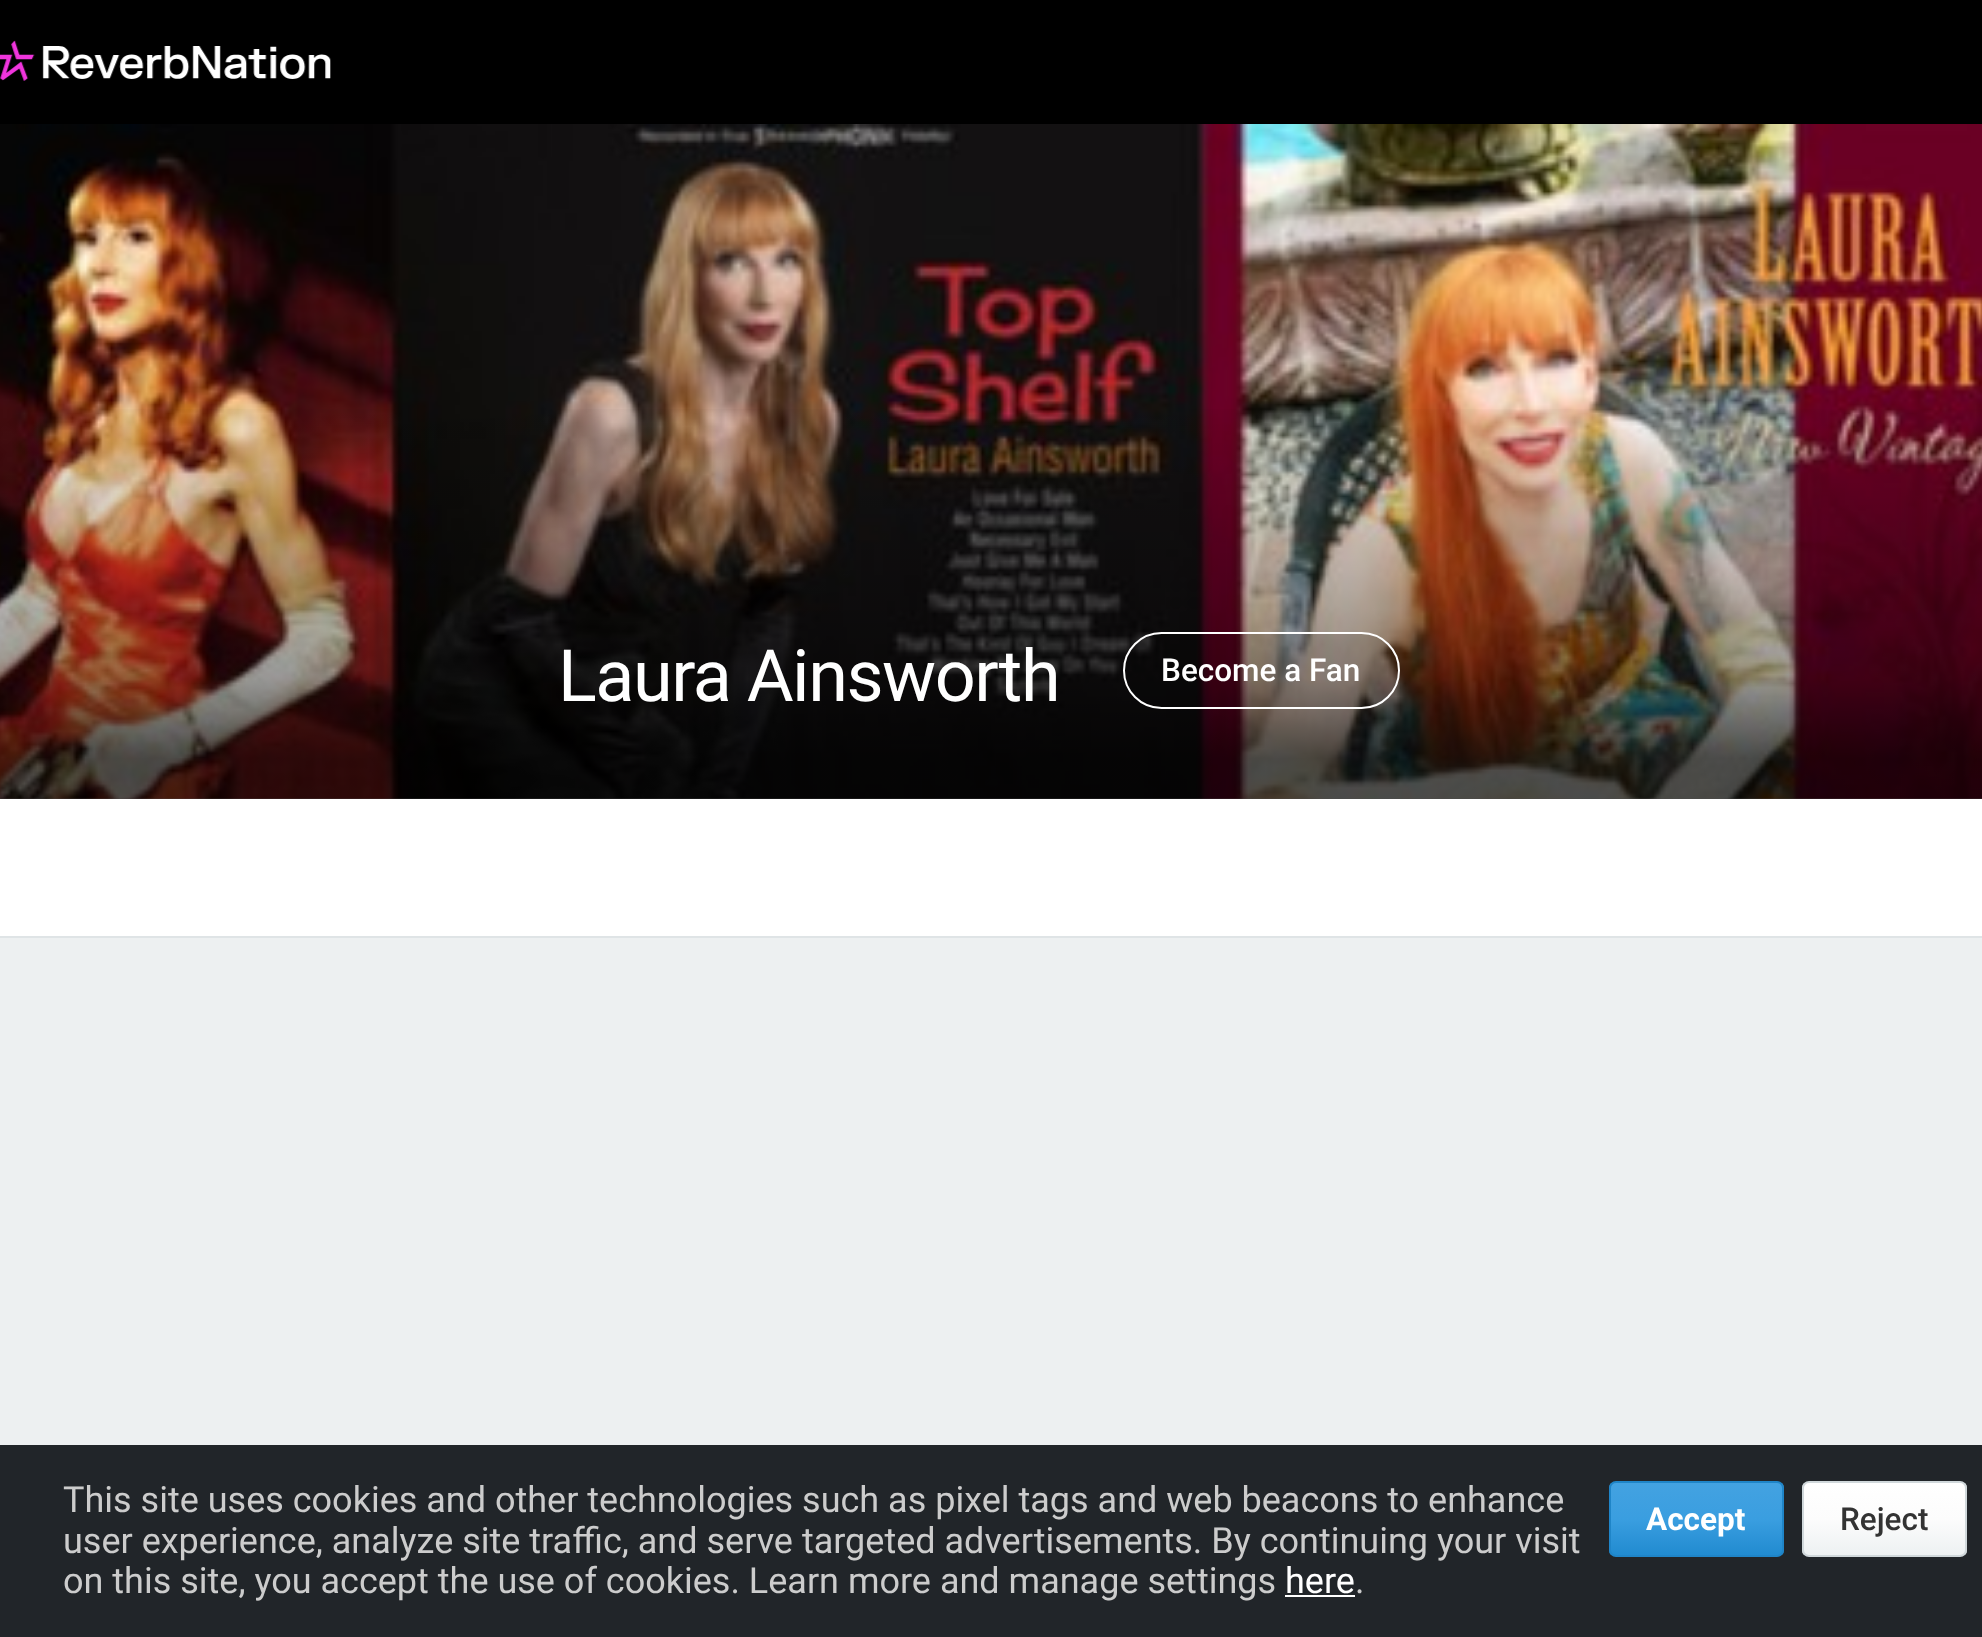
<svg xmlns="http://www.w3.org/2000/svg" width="1982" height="1637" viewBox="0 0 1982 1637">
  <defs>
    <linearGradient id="g1" gradientUnits="userSpaceOnUse" x1="991" y1="394" x2="991" y2="799"><stop offset="0" stop-color="#000000" stop-opacity="0"/><stop offset="0.7" stop-color="#000000" stop-opacity="0.4"/><stop offset="0.9" stop-color="#000000" stop-opacity="0.7"/></linearGradient>
    <clipPath id="clip1"><rect x="1609" y="1481" width="175" height="76" rx="7"/></clipPath>
    <linearGradient id="g2" gradientUnits="userSpaceOnUse" x1="1697" y1="1483" x2="1697" y2="1555"><stop offset="0" stop-color="#43a2e1"/><stop offset="0.5" stop-color="#3a9ee0"/><stop offset="1" stop-color="#218bd0"/></linearGradient>
    <clipPath id="clip2"><rect x="1802" y="1481" width="165" height="76" rx="7"/></clipPath>
    <linearGradient id="g3" gradientUnits="userSpaceOnUse" x1="1884" y1="1483" x2="1884" y2="1555"><stop offset="0" stop-color="#ffffff"/><stop offset="0.5" stop-color="#fcfcfc"/><stop offset="1" stop-color="#edf1f2"/></linearGradient>
  </defs>
  <rect width="100%" height="100%" fill="#edf0f1"/>
  <rect x="0" y="0" width="1982" height="124" fill="#000000"/>
  <image x="0" y="40" width="331" height="41" href="img1.png"/>
  <rect x="0" y="798" width="1982" height="138" fill="#ffffff"/>
  <image x="0" y="124" width="1982" height="675" href="img2.png"/>
  <rect x="0" y="409" width="1982" height="390" fill="url(#g1)"/>
  <text x="558" y="701" font-family="Roboto" font-size="72" letter-spacing="-1.5" fill="#ffffff">Laura Ainsworth</text>
  <rect x="1124" y="633" width="275" height="75" rx="37.5" fill="#000000" fill-opacity="0.1" stroke="#ffffff" stroke-width="2"/>
  <text x="1161" y="681" font-family="Roboto" font-size="31.5" font-weight="500" fill="#ffffff">Become a Fan</text>
  <rect x="0" y="936" width="1982" height="2" fill="#dfe4e6"/>
  <rect x="0" y="1445" width="1982" height="192" fill="#212529"/>
  <text x="63" y="1512" font-family="Roboto" font-size="36" fill="#cccccc">This site uses cookies and other technologies such as pixel tags and web beacons to enhance</text>
  <text x="63" y="1553" font-family="Roboto" font-size="36" fill="#cccccc">user experience, analyze site traffic, and serve targeted advertisements. By continuing your visit</text>
  <text x="63" y="1593" font-family="Roboto" font-size="36" fill="#cccccc">on this site, you accept the use of cookies. Learn more and manage settings</text>
  <text x="1285" y="1593" font-family="Roboto" font-size="36" fill="#ffffff">here</text>
  <rect x="1285" y="1595" width="70" height="2" fill="#ffffff"/>
  <text x="1355" y="1593" font-family="Roboto" font-size="36" fill="#cccccc">.</text>
  <g clip-path="url(#clip1)">
    <rect x="1609" y="1483" width="175" height="72" fill="url(#g2)"/>
  </g>
  <rect x="1610" y="1482" width="173" height="74" rx="6" fill="none" stroke="#1f85c8" stroke-width="2"/>
  <text x="1646" y="1530" font-family="Roboto" font-size="31.5" font-weight="bold" fill="#ffffff">Accept</text>
  <g clip-path="url(#clip2)">
    <rect x="1802" y="1483" width="165" height="72" fill="url(#g3)"/>
  </g>
  <rect x="1803" y="1482" width="163" height="74" rx="6" fill="none" stroke="#d0d8db" stroke-width="2"/>
  <text x="1840" y="1530" font-family="Roboto" font-size="31.5" font-weight="500" fill="#333333">Reject</text>
</svg>
